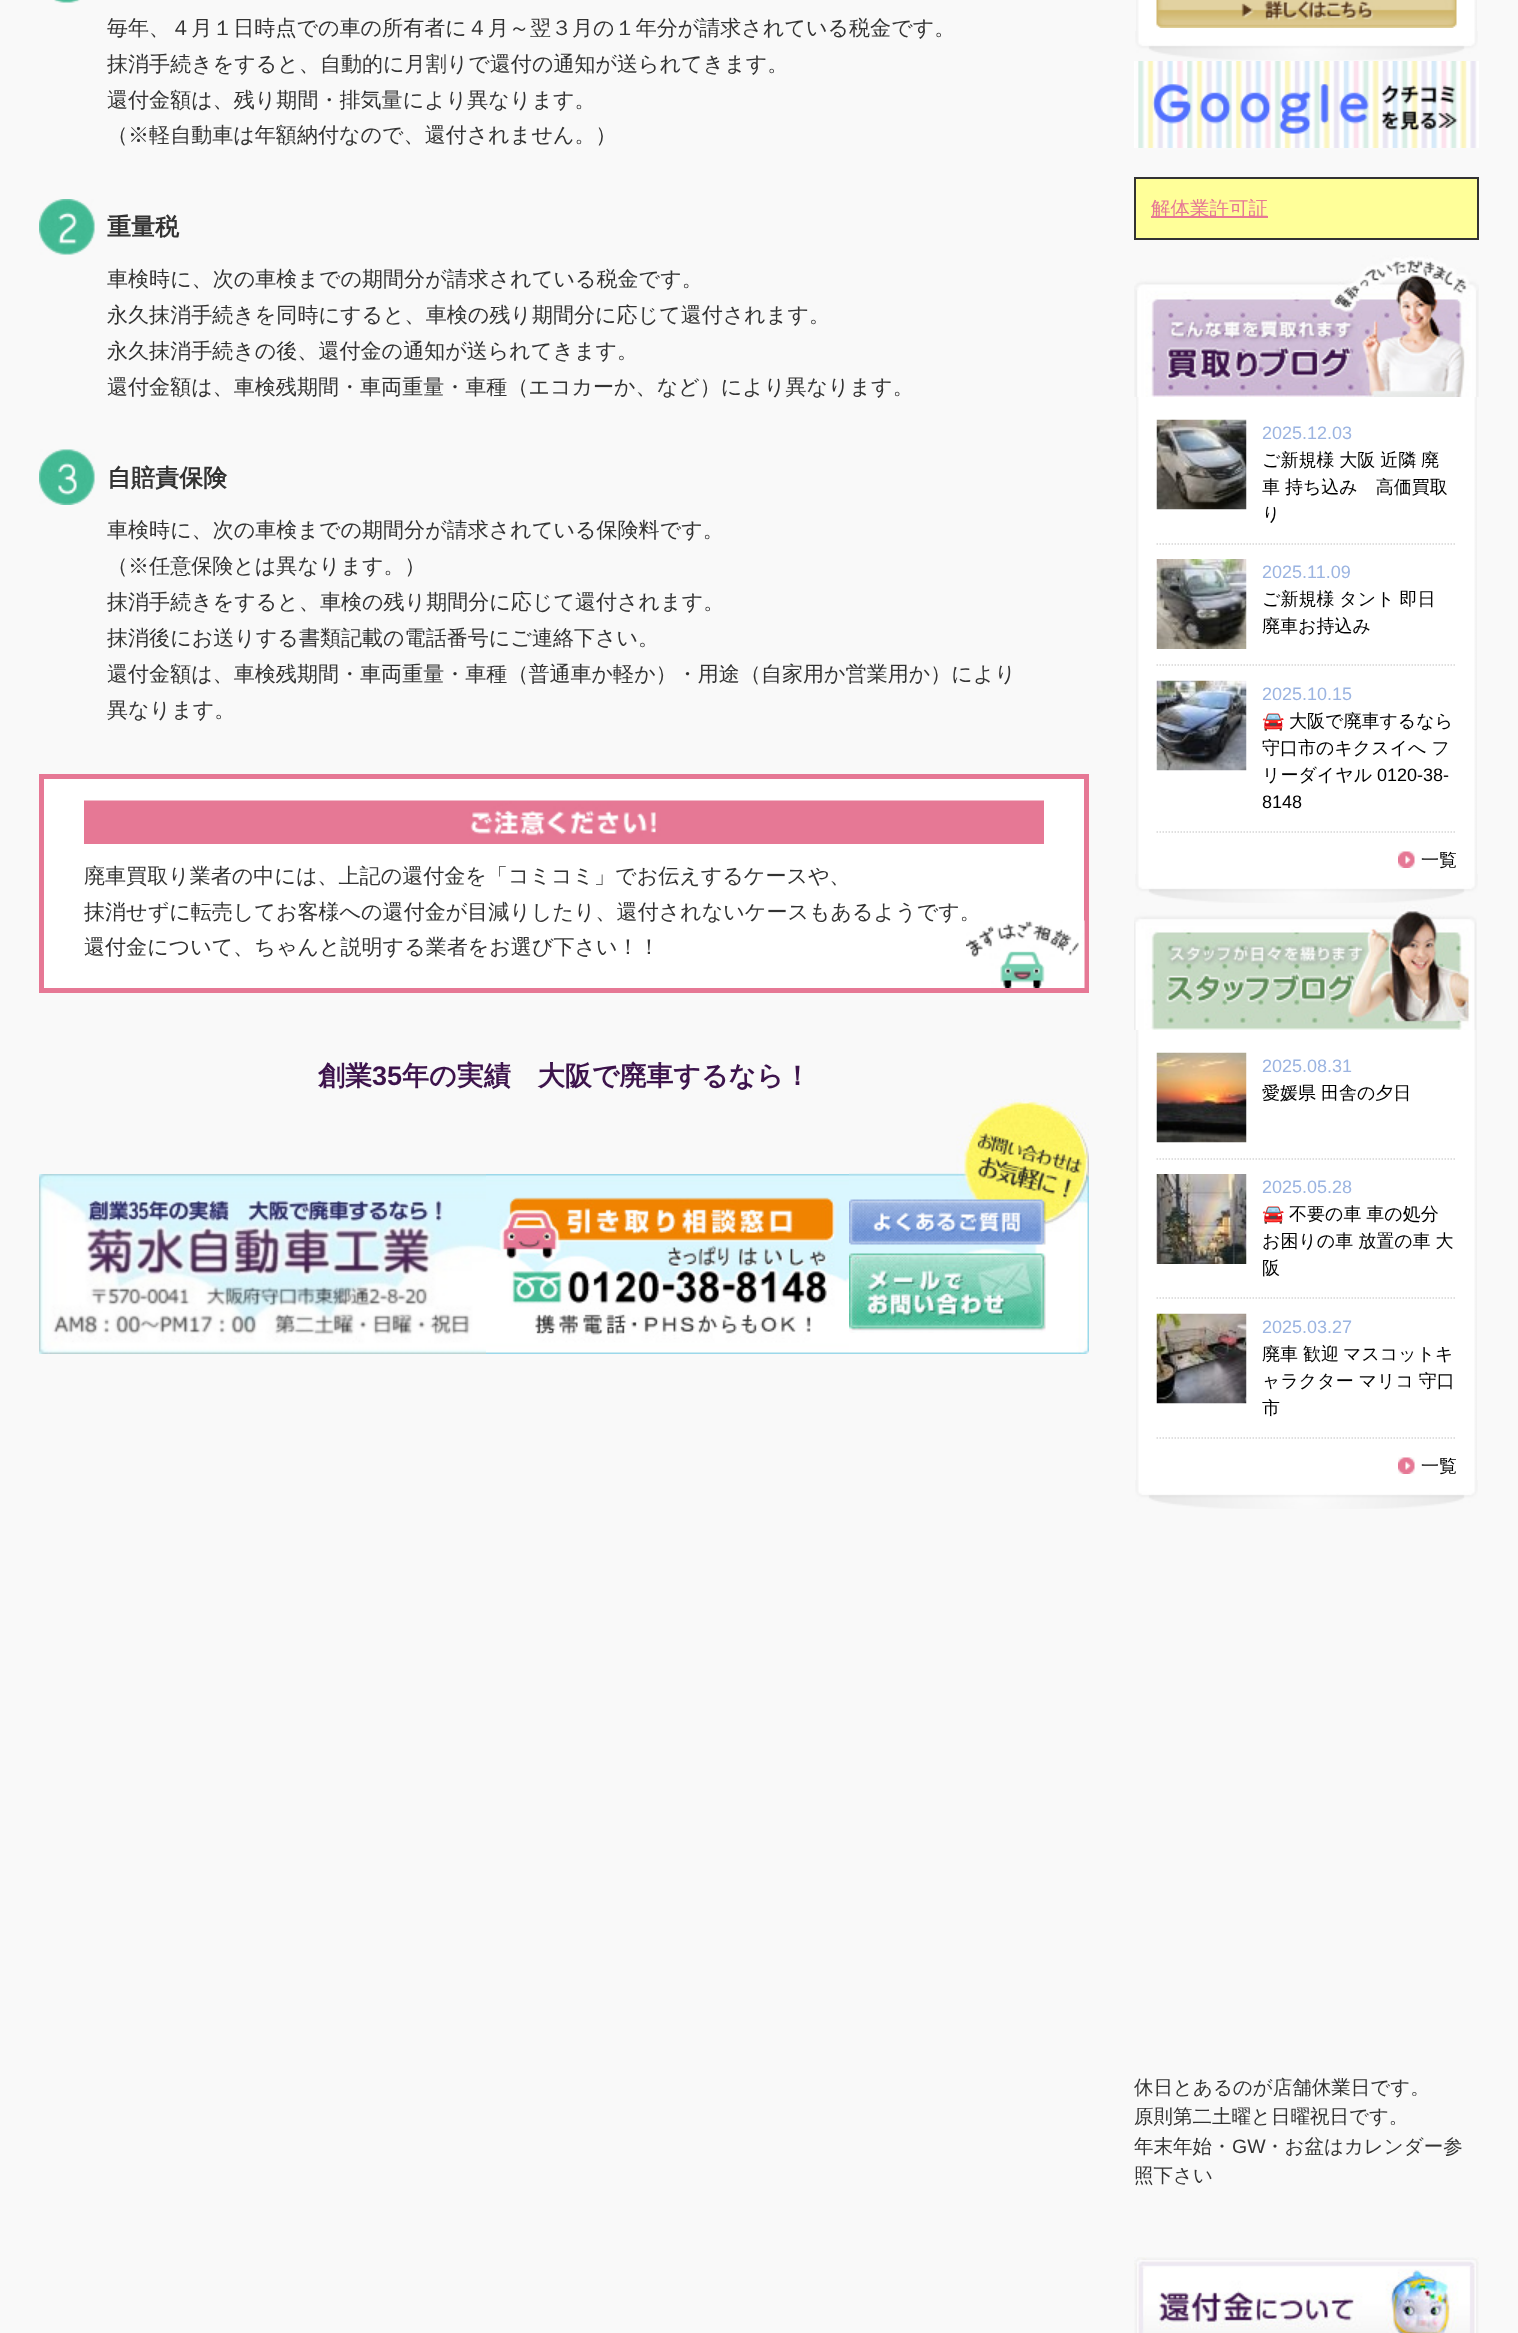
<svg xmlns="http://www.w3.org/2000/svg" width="1518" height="2333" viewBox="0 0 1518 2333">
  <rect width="100%" height="100%" fill="#f9f9f9"/>
  <image x="54" y="0" width="26" height="3" href="img1.png"/>
  <text x="107" y="35" font-family="WenQuanYi Zen Hei" font-size="21.05" font-weight="500" fill="#333333">毎年、４月１日時点での車の所有者に４月～翌３月の１年分が請求されている税金です。</text>
  <text x="107" y="71" font-family="WenQuanYi Zen Hei" font-size="21.05" font-weight="500" fill="#333333">抹消手続きをすると、自動的に月割りで還付の通知が送られてきます。</text>
  <text x="107" y="107" font-family="WenQuanYi Zen Hei" font-size="21.05" font-weight="500" fill="#333333">還付金額は、残り期間・排気量により異なります。</text>
  <text x="107" y="142" font-family="WenQuanYi Zen Hei" font-size="21.05" font-weight="500" fill="#333333">（※軽自動車は年額納付なので、還付されません。）</text>
  <image x="39" y="199" width="56" height="56" href="img2.png"/>
  <text x="107" y="235" font-family="WenQuanYi Zen Hei" font-size="24" font-weight="bold" fill="#333333">重量税</text>
  <text x="107" y="286" font-family="WenQuanYi Zen Hei" font-size="21.05" font-weight="500" fill="#333333">車検時に、次の車検までの期間分が請求されている税金です。</text>
  <text x="107" y="322" font-family="WenQuanYi Zen Hei" font-size="21.05" font-weight="500" fill="#333333">永久抹消手続きを同時にすると、車検の残り期間分に応じて還付されます。</text>
  <text x="107" y="358" font-family="WenQuanYi Zen Hei" font-size="21.05" font-weight="500" fill="#333333">永久抹消手続きの後、還付金の通知が送られてきます。</text>
  <text x="107" y="394" font-family="WenQuanYi Zen Hei" font-size="21.05" font-weight="500" fill="#333333">還付金額は、車検残期間・車両重量・車種（エコカーか、など）により異なります。</text>
  <image x="39" y="449" width="56" height="56" href="img3.png"/>
  <text x="107" y="486" font-family="WenQuanYi Zen Hei" font-size="24" font-weight="bold" fill="#333333">自賠責保険</text>
  <text x="107" y="537" font-family="WenQuanYi Zen Hei" font-size="21.05" font-weight="500" fill="#333333">車検時に、次の車検までの期間分が請求されている保険料です。</text>
  <text x="107" y="573" font-family="WenQuanYi Zen Hei" font-size="21.05" font-weight="500" fill="#333333">（※任意保険とは異なります。）</text>
  <text x="107" y="609" font-family="WenQuanYi Zen Hei" font-size="21.05" font-weight="500" fill="#333333">抹消手続きをすると、車検の残り期間分に応じて還付されます。</text>
  <text x="107" y="645" font-family="WenQuanYi Zen Hei" font-size="21.05" font-weight="500" fill="#333333">抹消後にお送りする書類記載の電話番号にご連絡下さい。</text>
  <text x="107" y="681" font-family="WenQuanYi Zen Hei" font-size="21.05" font-weight="500" fill="#333333">還付金額は、車検残期間・車両重量・車種（普通車か軽か）・用途（自家用か営業用か）により</text>
  <text x="107" y="717" font-family="WenQuanYi Zen Hei" font-size="21.05" font-weight="500" fill="#333333">異なります。</text>
  <rect x="41.5" y="776.5" width="1045" height="214" fill="#ffffff" stroke="#e67895" stroke-width="5"/>
  <image x="84" y="800" width="960" height="44" href="img4.png"/>
  <text x="84" y="883" font-family="WenQuanYi Zen Hei" font-size="21.05" font-weight="500" fill="#333333">廃車買取り業者の中には、上記の還付金を「コミコミ」でお伝えするケースや、</text>
  <text x="84" y="919" font-family="WenQuanYi Zen Hei" font-size="21.05" font-weight="500" fill="#333333">抹消せずに転売してお客様への還付金が目減りしたり、還付されないケースもあるようです。</text>
  <text x="84" y="954" font-family="WenQuanYi Zen Hei" font-size="21.05" font-weight="500" fill="#333333">還付金について、ちゃんと説明する業者をお選び下さい！！</text>
  <image x="966" y="920" width="119" height="68" href="img5.png"/>
  <text x="318" y="1085" font-family="WenQuanYi Zen Hei" font-size="27" font-weight="bold" fill="#3d144c">創業</text>
  <text x="372" y="1085" font-family="Liberation Sans" font-size="27" font-weight="bold" fill="#3d144c">35</text>
  <text x="402" y="1085" font-family="WenQuanYi Zen Hei" font-size="27" font-weight="bold" fill="#3d144c">年の実績　大阪で廃車するなら！</text>
  <image x="849" y="1099" width="240" height="255" href="img6.png"/>
  <image x="39" y="1174" width="447" height="180" href="img7.png"/>
  <image x="486" y="1174" width="363" height="180" href="img8.png"/>
  <image x="849" y="1199" width="197" height="46" href="img9.png"/>
  <image x="849" y="1253" width="197" height="80" href="img10.png"/>
  <image x="1135" y="31" width="343" height="29" href="img11.png"/>
  <image x="1136" y="0" width="341" height="31" href="img12.png"/>
  <image x="1156" y="0" width="301" height="28" href="img13.png"/>
  <image x="1134" y="61" width="345" height="87" href="img14.png"/>
  <rect x="1135" y="178" width="343" height="61" fill="#ffff99" stroke="#333333" stroke-width="2"/>
  <rect x="1151" y="216" width="117" height="2" fill="#e67895"/>
  <text x="1151" y="215" font-family="WenQuanYi Zen Hei" font-size="19.5" font-weight="500" fill="#e67895">解体業許可証</text>
  <image x="1135" y="874" width="343" height="29" href="img11.png"/>
  <image x="1136" y="397" width="341" height="477" href="img15.png"/>
  <image x="1134" y="255" width="345" height="142" href="img16.png"/>
  <path d="M1156.5 544H1456.5" fill="none" stroke="#d6d6d6" stroke-width="1.5" stroke-dasharray="1.5 1.5"/>
  <image x="1156" y="419" width="91" height="91" href="img17.png"/>
  <text x="1262" y="439" font-family="Liberation Sans" font-size="18" fill="#9bb4e1">2025.12.03</text>
  <text x="1262" y="466" word-spacing="-0.5" font-family="WenQuanYi Zen Hei" font-size="18" font-weight="500" fill="#000000">ご新規様 大阪 近隣 廃</text>
  <text x="1262" y="493" word-spacing="-0.5" font-family="WenQuanYi Zen Hei" font-size="18" font-weight="500" fill="#000000">車 持ち込み　高価買取</text>
  <text x="1262" y="520" font-family="WenQuanYi Zen Hei" font-size="18" font-weight="500" fill="#000000">り</text>
  <path d="M1156.5 665H1456.5" fill="none" stroke="#d6d6d6" stroke-width="1.5" stroke-dasharray="1.5 1.5"/>
  <image x="1156" y="559" width="91" height="90" href="img18.png"/>
  <text x="1262" y="578" font-family="Liberation Sans" font-size="18" fill="#9bb4e1">2025.11.09</text>
  <text x="1262" y="605" word-spacing="-0.5" font-family="WenQuanYi Zen Hei" font-size="18" font-weight="500" fill="#000000">ご新規様 タント 即日</text>
  <text x="1262" y="632" font-family="WenQuanYi Zen Hei" font-size="18" font-weight="500" fill="#000000">廃車お持込み</text>
  <path d="M1156.5 832H1456.5" fill="none" stroke="#d6d6d6" stroke-width="1.5" stroke-dasharray="1.5 1.5"/>
  <image x="1156" y="680" width="91" height="91" href="img19.png"/>
  <text x="1262" y="700" font-family="Liberation Sans" font-size="18" fill="#9bb4e1">2025.10.15</text>
  <text x="1262" y="727" font-family="Noto Color Emoji" font-size="18" fill="#000000">🚘</text>
  <text x="1289" y="727" font-family="WenQuanYi Zen Hei" font-size="18" font-weight="500" fill="#000000">大阪で廃車するなら</text>
  <text x="1262" y="754" word-spacing="-0.5" font-family="WenQuanYi Zen Hei" font-size="18" font-weight="500" fill="#000000">守口市のキクスイへ フ</text>
  <text x="1262" y="781" font-family="WenQuanYi Zen Hei" font-size="18" font-weight="500" fill="#000000">リーダイヤル</text>
  <text x="1377" y="781" font-family="Liberation Sans" font-size="18" fill="#000000">0120-38-</text>
  <text x="1262" y="808" font-family="Liberation Sans" font-size="18" fill="#000000">8148</text>
  <image x="1398" y="851" width="17" height="17" href="img20.png"/>
  <text x="1421" y="866" font-family="WenQuanYi Zen Hei" font-size="18" font-weight="500" fill="#000000">一覧</text>
  <image x="1135" y="1480" width="343" height="29" href="img11.png"/>
  <image x="1136" y="1030" width="341" height="450" href="img21.png"/>
  <image x="1134" y="904" width="343" height="126" href="img22.png"/>
  <path d="M1156.5 1159H1456.5" fill="none" stroke="#d6d6d6" stroke-width="1.5" stroke-dasharray="1.5 1.5"/>
  <image x="1156" y="1052" width="91" height="91" href="img23.png"/>
  <text x="1262" y="1072" font-family="Liberation Sans" font-size="18" fill="#9bb4e1">2025.08.31</text>
  <text x="1262" y="1099" word-spacing="-0.5" font-family="WenQuanYi Zen Hei" font-size="18" font-weight="500" fill="#000000">愛媛県 田舎の夕日</text>
  <path d="M1156.5 1298H1456.5" fill="none" stroke="#d6d6d6" stroke-width="1.5" stroke-dasharray="1.5 1.5"/>
  <image x="1156" y="1174" width="91" height="90" href="img24.png"/>
  <text x="1262" y="1193" font-family="Liberation Sans" font-size="18" fill="#9bb4e1">2025.05.28</text>
  <text x="1262" y="1220" font-family="Noto Color Emoji" font-size="18" fill="#000000">🚘</text>
  <text x="1289" y="1220" word-spacing="-0.5" font-family="WenQuanYi Zen Hei" font-size="18" font-weight="500" fill="#000000">不要の車 車の処分</text>
  <text x="1262" y="1247" word-spacing="-0.5" font-family="WenQuanYi Zen Hei" font-size="18" font-weight="500" fill="#000000">お困りの車 放置の車 大</text>
  <text x="1262" y="1274" font-family="WenQuanYi Zen Hei" font-size="18" font-weight="500" fill="#000000">阪</text>
  <path d="M1156.5 1438H1456.5" fill="none" stroke="#d6d6d6" stroke-width="1.5" stroke-dasharray="1.5 1.5"/>
  <image x="1156" y="1313" width="91" height="91" href="img25.png"/>
  <text x="1262" y="1333" font-family="Liberation Sans" font-size="18" fill="#9bb4e1">2025.03.27</text>
  <text x="1262" y="1360" word-spacing="-0.5" font-family="WenQuanYi Zen Hei" font-size="18" font-weight="500" fill="#000000">廃車 歓迎</text>
  <text x="1343" y="1360" font-family="WenQuanYi Zen Hei" font-size="18" font-weight="500" fill="#000000">マスコットキ</text>
  <text x="1262" y="1387" word-spacing="-0.5" font-family="WenQuanYi Zen Hei" font-size="18" font-weight="500" fill="#000000">ャラクター マリコ 守口</text>
  <text x="1262" y="1414" font-family="WenQuanYi Zen Hei" font-size="18" font-weight="500" fill="#000000">市</text>
  <image x="1398" y="1457" width="17" height="17" href="img20.png"/>
  <text x="1421" y="1472" font-family="WenQuanYi Zen Hei" font-size="18" font-weight="500" fill="#000000">一覧</text>
  <text x="1134" y="2094" font-family="WenQuanYi Zen Hei" font-size="19.5" font-weight="500" fill="#333333">休日とあるのが店舗休業日です。</text>
  <text x="1134" y="2123" font-family="WenQuanYi Zen Hei" font-size="19.5" font-weight="500" fill="#333333">原則第二土曜と日曜祝日です。</text>
  <text x="1134" y="2153" font-family="WenQuanYi Zen Hei" font-size="19.5" font-weight="500" fill="#333333">年末年始・</text>
  <text x="1232" y="2153" font-family="Liberation Sans" font-size="19.5" fill="#333333">GW</text>
  <text x="1265" y="2153" font-family="WenQuanYi Zen Hei" font-size="19.5" font-weight="500" fill="#333333">・お盆はカレンダー参</text>
  <text x="1134" y="2182" font-family="WenQuanYi Zen Hei" font-size="19.5" font-weight="500" fill="#333333">照下さい</text>
  <image x="1134" y="2257" width="345" height="76" href="img26.png"/>
</svg>
